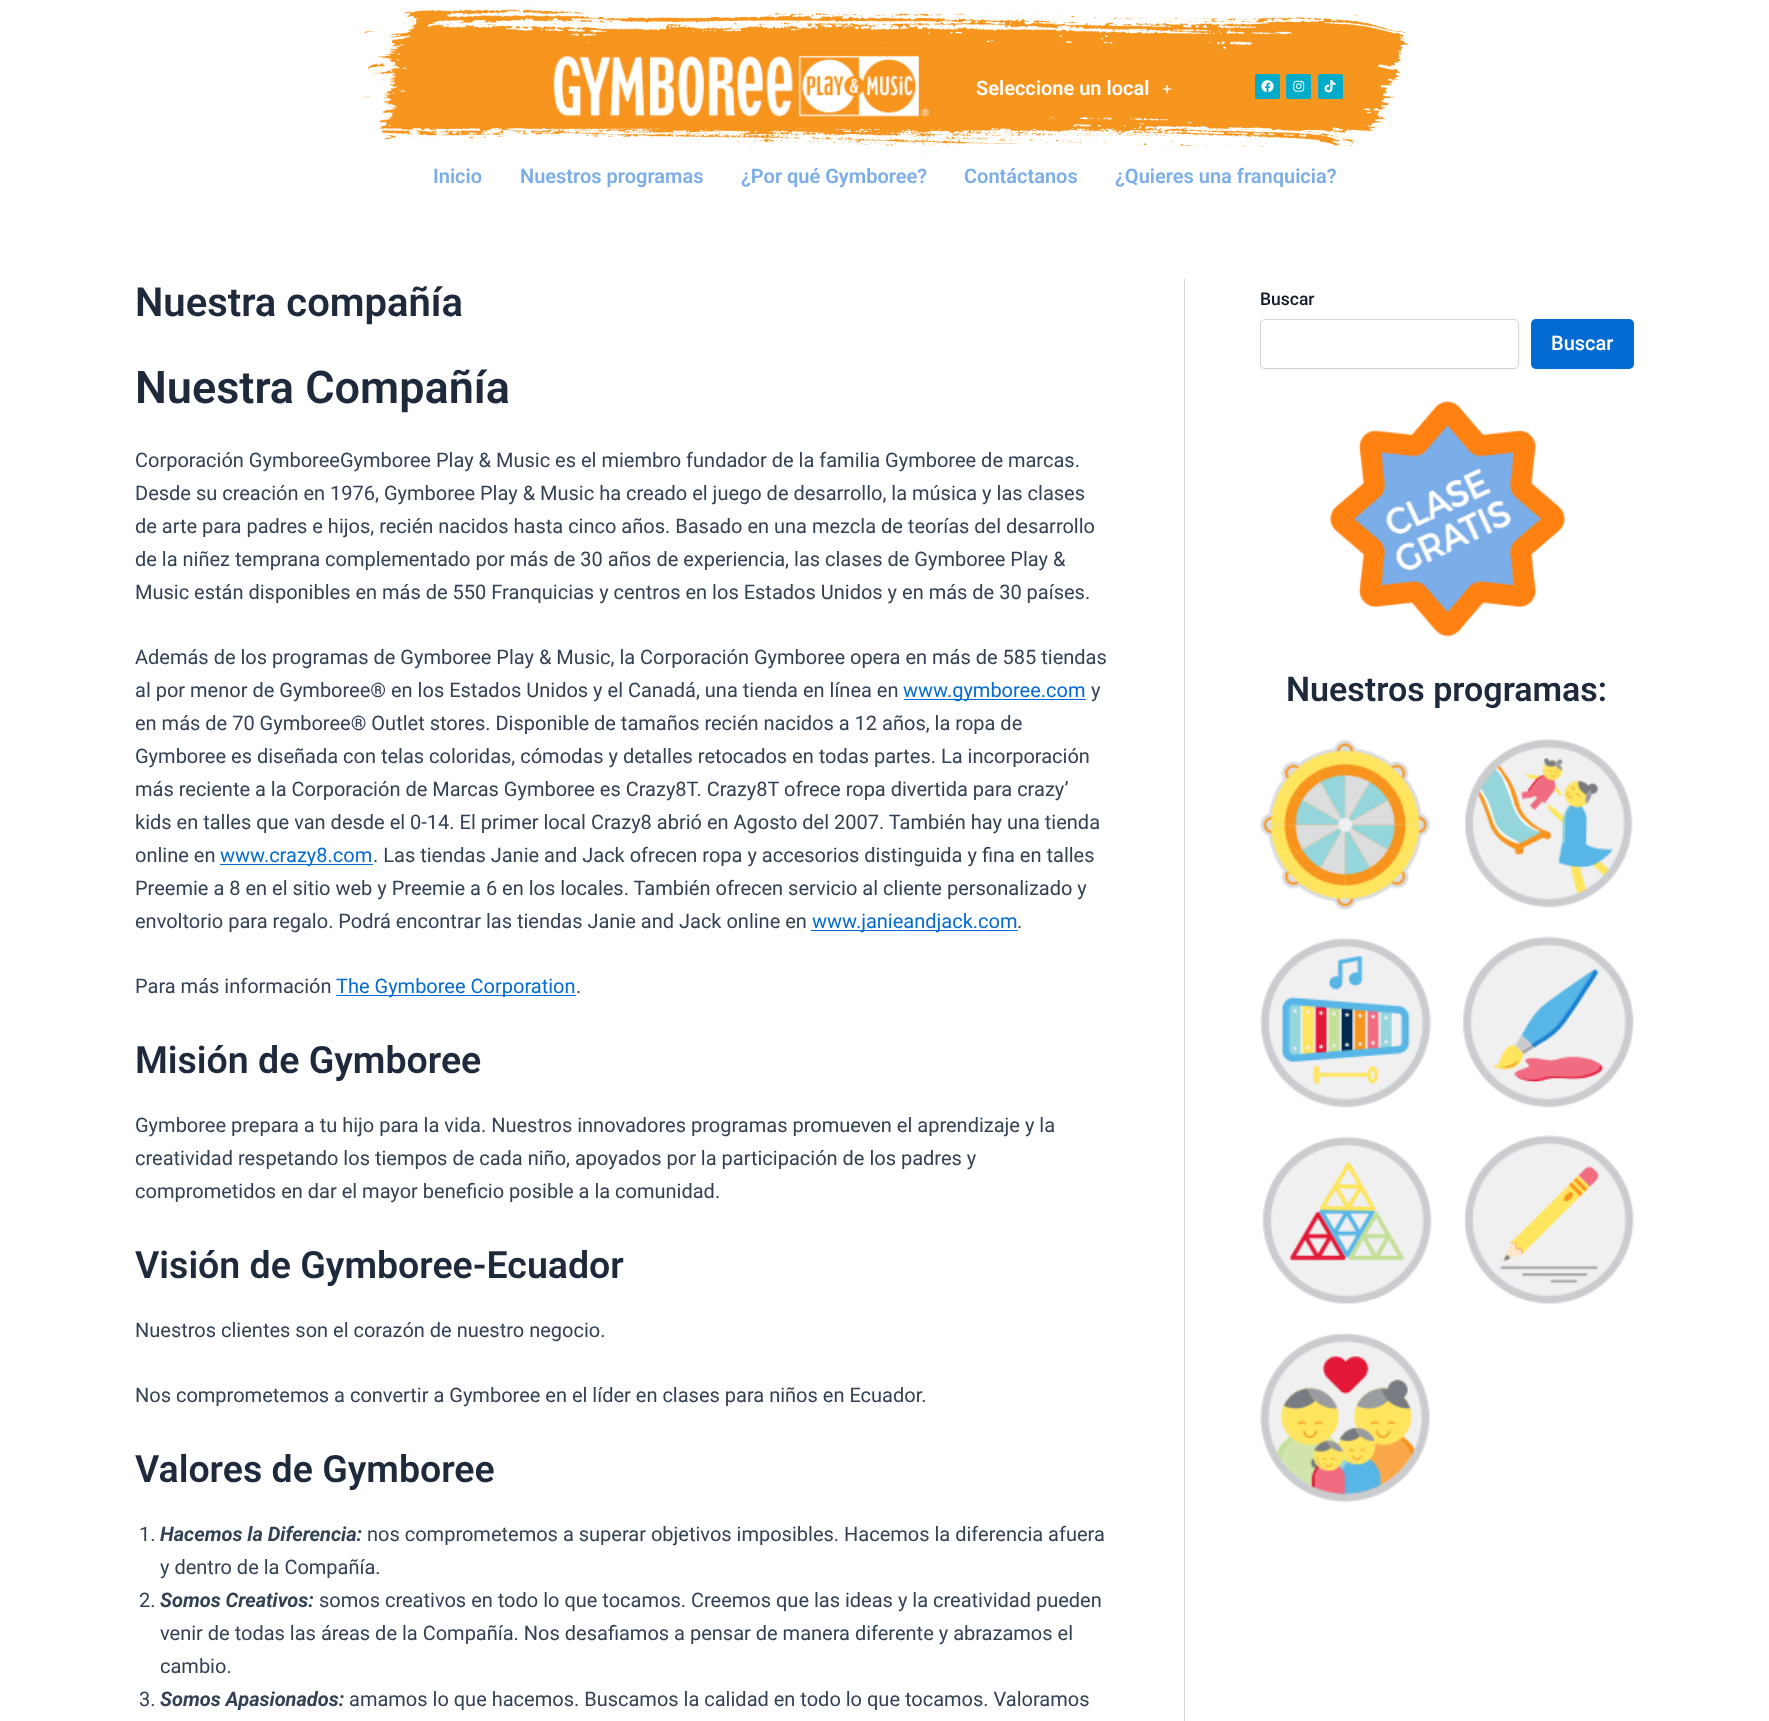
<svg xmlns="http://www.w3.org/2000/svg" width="1769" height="1721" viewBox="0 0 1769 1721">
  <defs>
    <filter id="blur1" x="-50%" y="-200%" width="200%" height="500%"><feGaussianBlur stdDeviation="1"/></filter>
  </defs>
  <rect width="100%" height="100%" fill="#ffffff"/>
  <image x="362" y="0" width="1047" height="154" href="img1.png"/>
  <image x="545" y="42" width="390" height="87" href="img2.png"/>
  <text x="976" y="95" font-family="Roboto" font-size="20" font-weight="600" fill="#ffffff">Seleccione un local</text>
  <text x="1162" y="95" font-family="Liberation Serif" font-size="17.5" font-weight="bold" fill="#ffffff">+</text>
  <rect x="1255" y="74" width="25" height="25" rx="2.5" fill="#00acc9"/>
  <image x="1261" y="80" width="13" height="13" href="img3.png"/>
  <rect x="1286" y="74" width="25" height="25" rx="2.5" fill="#00acc9"/>
  <image x="1293" y="80" width="12" height="12" href="img4.png"/>
  <rect x="1318" y="74" width="25" height="25" rx="2.5" fill="#00acc9"/>
  <image x="1324" y="80" width="12" height="13" href="img5.png"/>
  <text x="433" y="183" font-family="Roboto" font-size="20" font-weight="600" fill="#7bade8">Inicio</text>
  <text x="520" y="183" font-family="Roboto" font-size="20" font-weight="600" fill="#7bade8">Nuestros programas</text>
  <text x="741" y="183" font-family="Roboto" font-size="20" font-weight="600" fill="#7bade8">¿Por qué Gymboree?</text>
  <text x="964" y="183" font-family="Roboto" font-size="20" font-weight="600" fill="#7bade8">Contáctanos</text>
  <text x="1115" y="183" font-family="Roboto" font-size="20" font-weight="600" fill="#7bade8">¿Quieres una franquicia?</text>
  <rect x="1184" y="279" width="1" height="1442" fill="#d1d5db"/>
  <text x="135" y="316" font-family="Roboto" font-size="40" font-weight="600" fill="#1e293b">Nuestra compañía</text>
  <text x="135" y="403" font-family="Roboto" font-size="45" font-weight="600" fill="#1e293b">Nuestra Compañía</text>
  <text x="135" y="467" font-family="Roboto" font-size="20" fill="#334155">Corporación GymboreeGymboree Play &amp; Music es el miembro fundador de la familia Gymboree de marcas.</text>
  <text x="135" y="500" font-family="Roboto" font-size="20" fill="#334155">Desde su creación en 1976, Gymboree Play &amp; Music ha creado el juego de desarrollo, la música y las clases</text>
  <text x="135" y="533" font-family="Roboto" font-size="20" fill="#334155">de arte para padres e hijos, recién nacidos hasta cinco años. Basado en una mezcla de teorías del desarrollo</text>
  <text x="135" y="566" font-family="Roboto" font-size="20" fill="#334155">de la niñez temprana complementado por más de 30 años de experiencia, las clases de Gymboree Play &amp;</text>
  <text x="135" y="599" font-family="Roboto" font-size="20" fill="#334155">Music están disponibles en más de 550 Franquicias y centros en los Estados Unidos y en más de 30 países.</text>
  <text x="135" y="664" font-family="Roboto" font-size="20" fill="#334155">Además de los programas de Gymboree Play &amp; Music, la Corporación Gymboree opera en más de 585 tiendas</text>
  <text x="135" y="697" font-family="Roboto" font-size="20" fill="#334155">al por menor de Gymboree® en los Estados Unidos y el Canadá, una tienda en línea en</text>
  <rect x="904" y="699" width="182" height="1" fill="#046bd2"/>
  <text x="903" y="697" font-family="Roboto" font-size="20" fill="#046bd2">www.gymboree.com</text>
  <text x="1091" y="697" font-family="Roboto" font-size="20" fill="#334155">y</text>
  <text x="135" y="730" font-family="Roboto" font-size="20" fill="#334155">en más de 70 Gymboree® Outlet stores. Disponible de tamaños recién nacidos a 12 años, la ropa de</text>
  <text x="135" y="763" font-family="Roboto" font-size="20" fill="#334155">Gymboree es diseñada con telas coloridas, cómodas y detalles retocados en todas partes. La incorporación</text>
  <text x="135" y="796" font-family="Roboto" font-size="20" fill="#334155">más reciente a la Corporación de Marcas Gymboree es Crazy8T. Crazy8T ofrece ropa divertida para crazy’</text>
  <text x="135" y="829" font-family="Roboto" font-size="20" fill="#334155">kids en talles que van desde el 0-14. El primer local Crazy8 abrió en Agosto del 2007. También hay una tienda</text>
  <text x="135" y="862" font-family="Roboto" font-size="20" fill="#334155">online en</text>
  <rect x="220" y="864" width="153" height="1" fill="#046bd2"/>
  <text x="220" y="862" font-family="Roboto" font-size="20" fill="#046bd2">www.crazy8.com</text>
  <text x="373" y="862" font-family="Roboto" font-size="20" fill="#334155">. Las tiendas Janie and Jack ofrecen ropa y accesorios distinguida y fina en talles</text>
  <text x="135" y="895" font-family="Roboto" font-size="20" fill="#334155">Preemie a 8 en el sitio web y Preemie a 6 en los locales. También ofrecen servicio al cliente personalizado y</text>
  <text x="135" y="928" font-family="Roboto" font-size="20" fill="#334155">envoltorio para regalo. Podrá encontrar las tiendas Janie and Jack online en</text>
  <rect x="811" y="930" width="207" height="1" fill="#046bd2"/>
  <text x="812" y="928" font-family="Roboto" font-size="20" fill="#046bd2">www.janieandjack.com</text>
  <text x="1017" y="928" font-family="Roboto" font-size="20" fill="#334155">.</text>
  <text x="135" y="993" font-family="Roboto" font-size="20" fill="#334155">Para más información</text>
  <rect x="336" y="995" width="240" height="1" fill="#046bd2"/>
  <text x="336" y="993" font-family="Roboto" font-size="20" fill="#046bd2">The Gymboree Corporation</text>
  <text x="576" y="993" font-family="Roboto" font-size="20" fill="#334155">.</text>
  <text x="135" y="1073" font-family="Roboto" font-size="37.5" font-weight="600" fill="#1e293b">Misión de Gymboree</text>
  <text x="135" y="1132" font-family="Roboto" font-size="20" fill="#334155">Gymboree prepara a tu hijo para la vida. Nuestros innovadores programas promueven el aprendizaje y la</text>
  <text x="135" y="1165" font-family="Roboto" font-size="20" fill="#334155">creatividad respetando los tiempos de cada niño, apoyados por la participación de los padres y</text>
  <text x="135" y="1198" font-family="Roboto" font-size="20" fill="#334155">comprometidos en dar el mayor beneficio posible a la comunidad.</text>
  <text x="135" y="1278" font-family="Roboto" font-size="37.5" font-weight="600" fill="#1e293b">Visión de Gymboree-Ecuador</text>
  <text x="135" y="1337" font-family="Roboto" font-size="20" fill="#334155">Nuestros clientes son el corazón de nuestro negocio.</text>
  <text x="135" y="1402" font-family="Roboto" font-size="20" fill="#334155">Nos comprometemos a convertir a Gymboree en el líder en clases para niños en Ecuador.</text>
  <text x="135" y="1482" font-family="Roboto" font-size="37.5" font-weight="600" fill="#1e293b">Valores de Gymboree</text>
  <text x="139" y="1541" font-family="Roboto" font-size="20" fill="#334155">1.</text>
  <text x="160" y="1541" font-family="Roboto" font-size="20" font-weight="bold" font-style="italic" fill="#334155">Hacemos la Diferencia:</text>
  <text x="367" y="1541" font-family="Roboto" font-size="20" fill="#334155">nos comprometemos a superar objetivos imposibles. Hacemos la diferencia afuera</text>
  <text x="160" y="1574" font-family="Roboto" font-size="20" fill="#334155">y dentro de la Compañía.</text>
  <text x="139" y="1607" font-family="Roboto" font-size="20" fill="#334155">2.</text>
  <text x="160" y="1607" font-family="Roboto" font-size="20" font-weight="bold" font-style="italic" fill="#334155">Somos Creativos:</text>
  <text x="319" y="1607" font-family="Roboto" font-size="20" fill="#334155">somos creativos en todo lo que tocamos. Creemos que las ideas y la creatividad pueden</text>
  <text x="160" y="1640" font-family="Roboto" font-size="20" fill="#334155">venir de todas las áreas de la Compañía. Nos desafiamos a pensar de manera diferente y abrazamos el</text>
  <text x="160" y="1673" font-family="Roboto" font-size="20" fill="#334155">cambio.</text>
  <text x="139" y="1706" font-family="Roboto" font-size="20" fill="#334155">3.</text>
  <text x="160" y="1706" font-family="Roboto" font-size="20" font-weight="bold" font-style="italic" fill="#334155">Somos Apasionados:</text>
  <text x="349" y="1706" font-family="Roboto" font-size="20" fill="#334155">amamos lo que hacemos. Buscamos la calidad en todo lo que tocamos. Valoramos</text>
  <text x="1260" y="305" font-family="Roboto" font-size="17.5" font-weight="500" fill="#111827">Buscar</text>
  <rect x="1260" y="320" width="259" height="50" rx="5" fill="#000000" fill-opacity="0.05" filter="url(#blur1)"/>
  <rect x="1260.5" y="319.5" width="258" height="49" rx="4.5" fill="#ffffff" stroke="#d1d5db"/>
  <rect x="1531" y="320" width="103" height="50" rx="5" fill="#000000" fill-opacity="0.05" filter="url(#blur1)"/>
  <rect x="1531" y="319" width="103" height="50" rx="5" fill="#046bd2"/>
  <text x="1551" y="350" font-family="Roboto" font-size="20" font-weight="500" fill="#ffffff">Buscar</text>
  <image x="1329" y="401" width="237" height="236" href="img6.png"/>
  <text x="1286" y="701" font-family="Roboto" font-size="34" font-weight="600" fill="#1e293b">Nuestros programas:</text>
  <image x="1260" y="739" width="170" height="171" href="img7.png"/>
  <image x="1464" y="739" width="169" height="169" href="img8.png"/>
  <image x="1260" y="938" width="172" height="170" href="img9.png"/>
  <image x="1463" y="936" width="171" height="172" href="img10.png"/>
  <image x="1262" y="1136" width="170" height="168" href="img11.png"/>
  <image x="1464" y="1135" width="170" height="169" href="img12.png"/>
  <image x="1260" y="1333" width="170" height="170" href="img13.png"/>
</svg>
